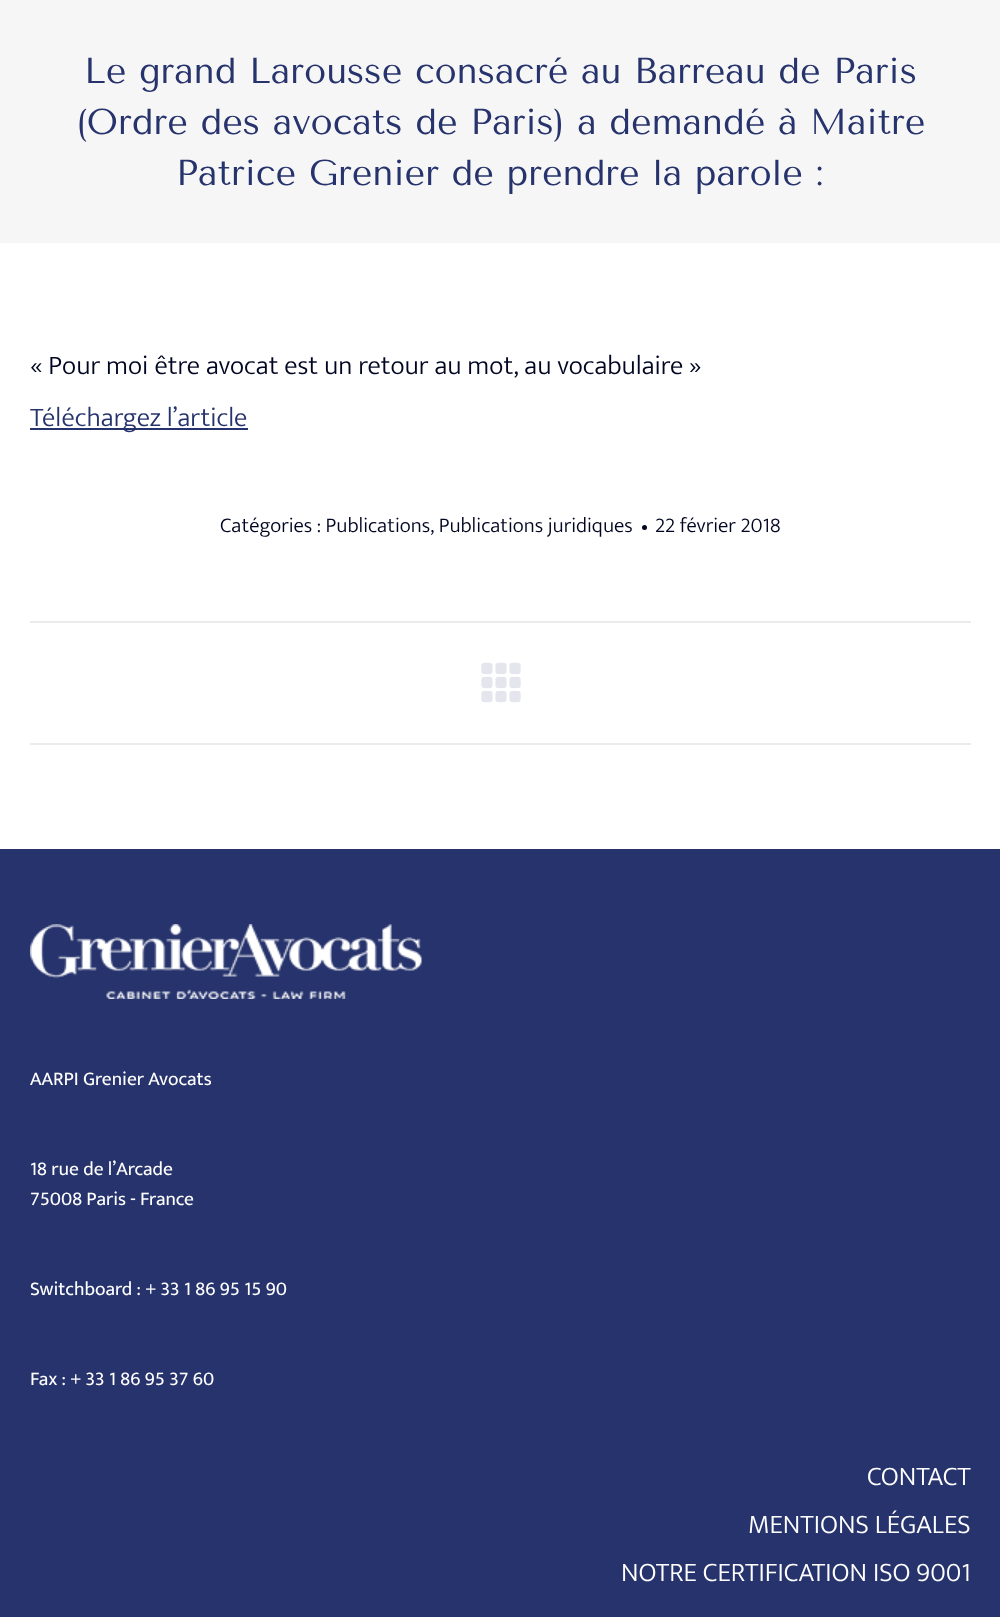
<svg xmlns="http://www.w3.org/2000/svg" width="1000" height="1617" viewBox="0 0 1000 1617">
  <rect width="100%" height="100%" fill="#ffffff"/>
  <rect x="0" y="0" width="1000" height="243" fill="#f6f6f6"/>
  <text x="84" y="83" font-family="Tenor Sans" font-size="36" fill="#26336c">Le grand Larousse consacré au Barreau de Paris</text>
  <text x="76" y="134" font-family="Tenor Sans" font-size="36" fill="#26336c">(Ordre des avocats de Paris) a demandé à Maitre</text>
  <text x="176" y="185" font-family="Tenor Sans" font-size="36" fill="#26336c">Patrice Grenier de prendre la parole :</text>
  <text x="30" y="374" font-family="Mukta" font-size="27" font-weight="300" fill="#000621">« Pour moi être avocat est un retour au mot, au vocabulaire »</text>
  <rect x="30" y="428" width="218" height="2" fill="#26336c"/>
  <text x="30" y="426" font-family="Mukta" font-size="27" font-weight="300" fill="#26336c">Téléchargez l’article</text>
  <text x="220" y="532" font-family="Mukta" font-size="21" font-weight="300" fill="#000621">Catégories : Publications, Publications juridiques</text>
  <circle cx="644.5" cy="527.5" r="2.5" fill="#000621"/>
  <text x="655" y="532" font-family="Mukta" font-size="21" font-weight="300" fill="#000621">22 février 2018</text>
  <rect x="30" y="621" width="941" height="2" fill="#ebebeb"/>
  <rect x="30" y="743" width="941" height="2" fill="#ebebeb"/>
  <image x="481" y="662" width="40" height="41" href="img1.png"/>
  <rect x="0" y="849" width="1000" height="768" fill="#26336c"/>
  <image x="30" y="924" width="392" height="75" href="img2.png"/>
  <text x="30" y="1085" font-family="Mukta" font-size="19.5" fill="#ffffff">AARPI Grenier Avocats</text>
  <text x="30" y="1175" font-family="Mukta" font-size="19.5" fill="#ffffff">18 rue de l’Arcade</text>
  <text x="30" y="1205" font-family="Mukta" font-size="19.5" fill="#ffffff">75008 Paris - France</text>
  <text x="30" y="1295" font-family="Mukta" font-size="19.5" fill="#ffffff">Switchboard : + 33 1 86 95 15 90</text>
  <text x="30" y="1385" font-family="Mukta" font-size="19.5" fill="#ffffff">Fax : + 33 1 86 95 37 60</text>
  <text x="867" y="1485" font-family="Mukta" font-size="27" font-weight="300" fill="#ffffff">CONTACT</text>
  <text x="748" y="1533" font-family="Mukta" font-size="27" font-weight="300" fill="#ffffff">MENTIONS LÉGALES</text>
  <text x="621" y="1581" font-family="Mukta" font-size="27" font-weight="300" fill="#ffffff">NOTRE CERTIFICATION ISO 9001</text>
</svg>
